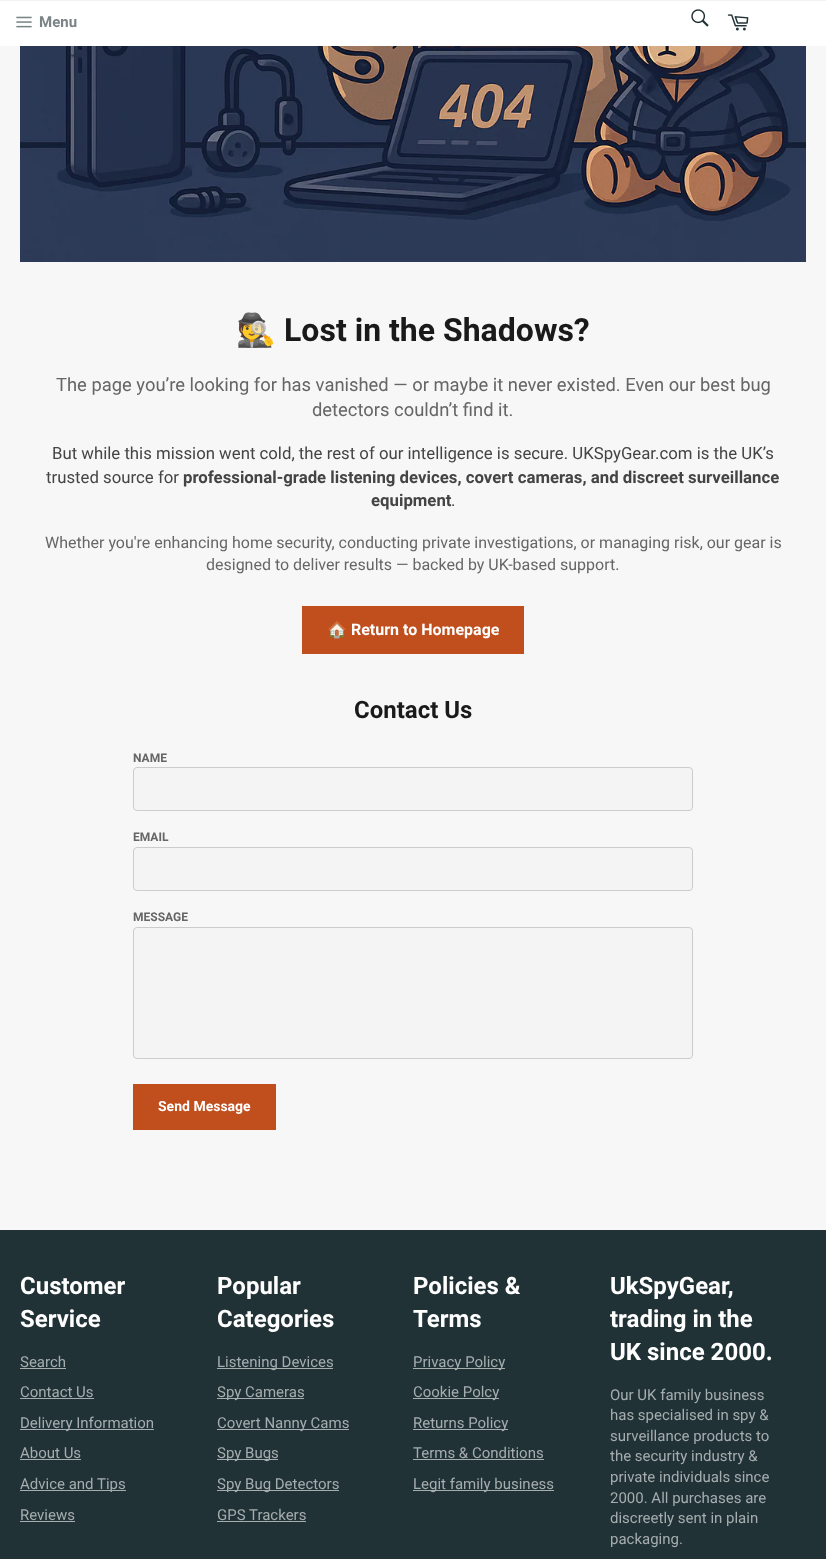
<svg xmlns="http://www.w3.org/2000/svg" width="826" height="1559" viewBox="0 0 826 1559">
  <rect width="100%" height="100%" fill="#f7f7f7"/>
  <rect x="0" y="1" width="826" height="45" fill="#ffffff"/>
  <rect x="0" y="0" width="826" height="1" fill="#f2f2f2"/>
  <image x="16" y="16" width="16" height="12" href="img1.png"/>
  <text x="39" y="27" font-family="Roboto" font-size="15" font-weight="bold" fill="#7a8486">Menu</text>
  <image x="691" y="9" width="18" height="18" href="img2.png"/>
  <image x="727" y="14" width="22" height="17" href="img3.png"/>
  <image x="20" y="46" width="786" height="216" href="img4.png"/>
  <text x="236" y="341" font-family="Noto Color Emoji" font-size="32" font-weight="bold" fill="#1a1a1a">🕵️</text>
  <text x="284" y="341" font-family="Roboto" font-size="32" font-weight="bold" fill="#1a1a1a">Lost in the Shadows?</text>
  <text x="56" y="391" font-family="Roboto" font-size="18.4" fill="#666666">The page you’re looking for has vanished — or maybe it never existed. Even our best bug</text>
  <text x="312" y="416" font-family="Roboto" font-size="18.4" fill="#666666">detectors couldn’t find it.</text>
  <text x="52" y="459" font-family="Roboto" font-size="16.8" fill="#444444">But while this mission went cold, the rest of our intelligence is secure. UKSpyGear.com is the UK’s</text>
  <text x="46" y="483" font-family="Roboto" font-size="16.8" fill="#444444">trusted source for</text>
  <text x="183" y="483" font-family="Roboto" font-size="16.8" font-weight="bold" fill="#444444">professional-grade listening devices, covert cameras, and discreet surveillance</text>
  <text x="371" y="506" font-family="Roboto" font-size="16.8" font-weight="bold" fill="#444444">equipment</text>
  <text x="451" y="506" font-family="Roboto" font-size="16.8" fill="#444444">.</text>
  <text x="45" y="548" font-family="Roboto" font-size="16" fill="#666666">Whether you're enhancing home security, conducting private investigations, or managing risk, our gear is</text>
  <text x="206" y="570" font-family="Roboto" font-size="16" fill="#666666">designed to deliver results — backed by UK-based support.</text>
  <rect x="302" y="606" width="222" height="48" fill="#c04f1d"/>
  <text x="327" y="635" font-family="Noto Color Emoji" font-size="16" font-weight="bold" fill="#ffffff">🏠</text>
  <text x="351" y="635" font-family="Roboto" font-size="16" font-weight="bold" fill="#ffffff">Return to Homepage</text>
  <text x="354" y="718" font-family="Roboto" font-size="24" font-weight="bold" fill="#1a1a1a">Contact Us</text>
  <text x="133" y="762" font-family="Roboto" font-size="12" font-weight="bold" fill="#666666">NAME</text>
  <rect x="133.5" y="767.5" width="559" height="43" rx="3.5" fill="#f4f4f4" stroke="#cccccc"/>
  <text x="133" y="841" font-family="Roboto" font-size="12" font-weight="bold" fill="#666666">EMAIL</text>
  <rect x="133.5" y="847.5" width="559" height="43" rx="3.5" fill="#f4f4f4" stroke="#cccccc"/>
  <text x="133" y="921" font-family="Roboto" font-size="12" font-weight="bold" fill="#666666">MESSAGE</text>
  <rect x="133.5" y="927.5" width="559" height="131" rx="3.5" fill="#f4f4f4" stroke="#cccccc"/>
  <rect x="133" y="1084" width="143" height="46" fill="#c04f1d"/>
  <text x="158" y="1111" font-family="Roboto" font-size="14" font-weight="bold" fill="#ffffff">Send Message</text>
  <rect x="0" y="1230" width="826" height="329" fill="#213236"/>
  <text x="20" y="1294" font-family="Roboto" font-size="24" font-weight="bold" fill="#ffffff">Customer</text>
  <text x="20" y="1327" font-family="Roboto" font-size="24" font-weight="bold" fill="#ffffff">Service</text>
  <text x="20" y="1367" font-family="Roboto" font-size="15" fill="#a6adaf">Search</text>
  <rect x="20" y="1368" width="46" height="1" fill="#a6adaf"/>
  <text x="20" y="1397" font-family="Roboto" font-size="15" fill="#a6adaf">Contact Us</text>
  <rect x="20" y="1398" width="74" height="1" fill="#a6adaf"/>
  <rect x="20" y="1429" width="134" height="1" fill="#a6adaf"/>
  <text x="20" y="1428" font-family="Roboto" font-size="15" fill="#a6adaf">Delivery Information</text>
  <text x="20" y="1458" font-family="Roboto" font-size="15" fill="#a6adaf">About Us</text>
  <rect x="20" y="1459" width="61" height="1" fill="#a6adaf"/>
  <rect x="20" y="1490" width="106" height="1" fill="#a6adaf"/>
  <text x="20" y="1489" font-family="Roboto" font-size="15" fill="#a6adaf">Advice and Tips</text>
  <text x="20" y="1520" font-family="Roboto" font-size="15" fill="#a6adaf">Reviews</text>
  <rect x="20" y="1521" width="55" height="1" fill="#a6adaf"/>
  <text x="217" y="1294" font-family="Roboto" font-size="24" font-weight="bold" fill="#ffffff">Popular</text>
  <text x="217" y="1327" font-family="Roboto" font-size="24" font-weight="bold" fill="#ffffff">Categories</text>
  <rect x="217" y="1368" width="116" height="1" fill="#a6adaf"/>
  <text x="217" y="1367" font-family="Roboto" font-size="15" fill="#a6adaf">Listening Devices</text>
  <rect x="217" y="1398" width="87" height="1" fill="#a6adaf"/>
  <text x="217" y="1397" font-family="Roboto" font-size="15" fill="#a6adaf">Spy Cameras</text>
  <rect x="217" y="1429" width="132" height="1" fill="#a6adaf"/>
  <text x="217" y="1428" font-family="Roboto" font-size="15" fill="#a6adaf">Covert Nanny Cams</text>
  <rect x="217" y="1459" width="61" height="1" fill="#a6adaf"/>
  <text x="217" y="1458" font-family="Roboto" font-size="15" fill="#a6adaf">Spy Bugs</text>
  <rect x="217" y="1490" width="122" height="1" fill="#a6adaf"/>
  <text x="217" y="1489" font-family="Roboto" font-size="15" fill="#a6adaf">Spy Bug Detectors</text>
  <text x="217" y="1520" font-family="Roboto" font-size="15" fill="#a6adaf">GPS Trackers</text>
  <rect x="217" y="1521" width="89" height="1" fill="#a6adaf"/>
  <text x="413" y="1294" font-family="Roboto" font-size="24" font-weight="bold" fill="#ffffff">Policies &amp;</text>
  <text x="413" y="1327" font-family="Roboto" font-size="24" font-weight="bold" fill="#ffffff">Terms</text>
  <rect x="413" y="1368" width="92" height="1" fill="#a6adaf"/>
  <text x="413" y="1367" font-family="Roboto" font-size="15" fill="#a6adaf">Privacy Policy</text>
  <rect x="413" y="1398" width="86" height="1" fill="#a6adaf"/>
  <text x="413" y="1397" font-family="Roboto" font-size="15" fill="#a6adaf">Cookie Polcy</text>
  <rect x="413" y="1429" width="95" height="1" fill="#a6adaf"/>
  <text x="413" y="1428" font-family="Roboto" font-size="15" fill="#a6adaf">Returns Policy</text>
  <text x="413" y="1458" font-family="Roboto" font-size="15" fill="#a6adaf">Terms &amp; Conditions</text>
  <rect x="413" y="1459" width="131" height="1" fill="#a6adaf"/>
  <rect x="413" y="1490" width="141" height="1" fill="#a6adaf"/>
  <text x="413" y="1489" font-family="Roboto" font-size="15" fill="#a6adaf">Legit family business</text>
  <text x="610" y="1294" font-family="Roboto" font-size="24" font-weight="bold" fill="#ffffff">UkSpyGear,</text>
  <text x="610" y="1327" font-family="Roboto" font-size="24" font-weight="bold" fill="#ffffff">trading in the</text>
  <text x="610" y="1360" font-family="Roboto" font-size="24" font-weight="bold" fill="#ffffff">UK since 2000.</text>
  <text x="610" y="1400" font-family="Roboto" font-size="15" fill="#a6adaf">Our UK family business</text>
  <text x="610" y="1420" font-family="Roboto" font-size="15" fill="#a6adaf">has specialised in spy &amp;</text>
  <text x="610" y="1441" font-family="Roboto" font-size="15" fill="#a6adaf">surveillance products to</text>
  <text x="610" y="1461" font-family="Roboto" font-size="15" fill="#a6adaf">the security industry &amp;</text>
  <text x="610" y="1482" font-family="Roboto" font-size="15" fill="#a6adaf">private individuals since</text>
  <text x="610" y="1503" font-family="Roboto" font-size="15" fill="#a6adaf">2000. All purchases are</text>
  <text x="610" y="1523" font-family="Roboto" font-size="15" fill="#a6adaf">discreetly sent in plain</text>
  <text x="610" y="1544" font-family="Roboto" font-size="15" fill="#a6adaf">packaging.</text>
</svg>
